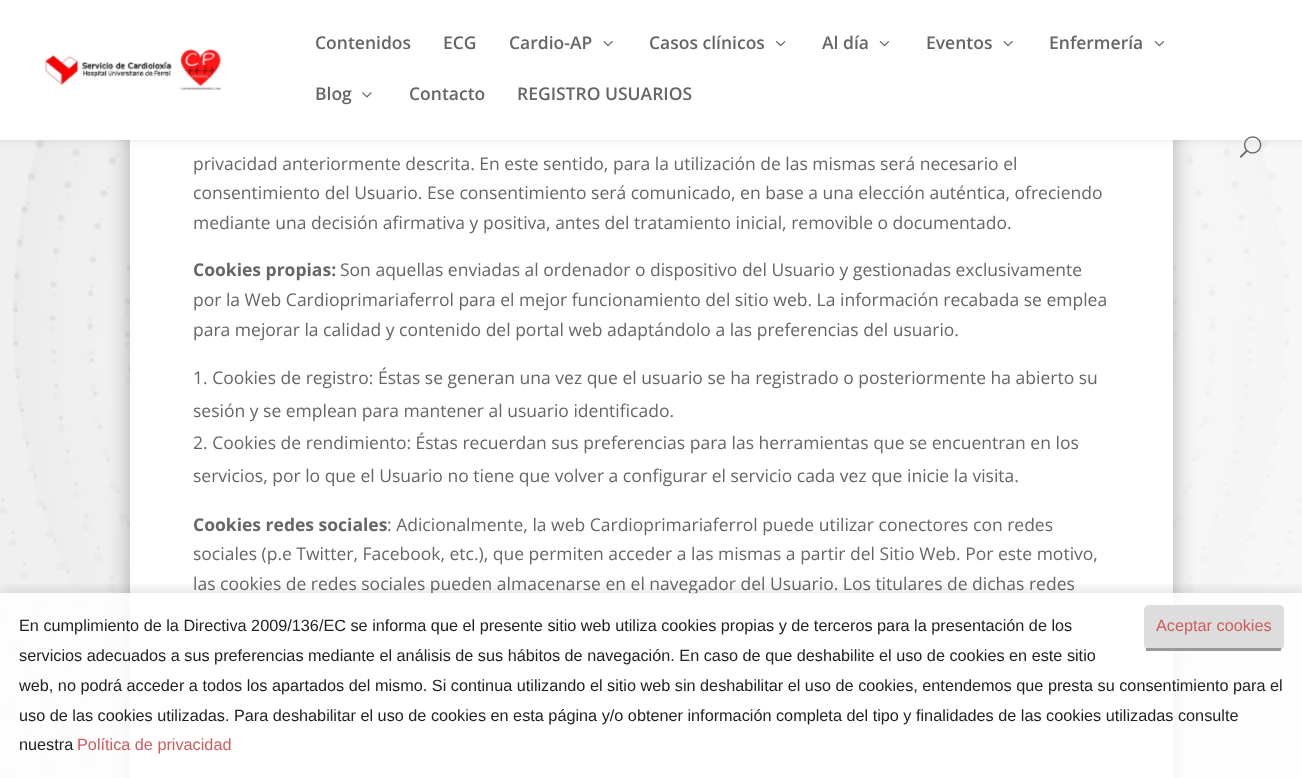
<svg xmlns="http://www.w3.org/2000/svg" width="1302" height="778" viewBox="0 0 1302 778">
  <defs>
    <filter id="blur1" x="-50%" y="-200%" width="200%" height="500%"><feGaussianBlur stdDeviation="11"/></filter>
    <filter id="blur2" x="-50%" y="-200%" width="200%" height="500%"><feGaussianBlur stdDeviation="4.5"/></filter>
    <clipPath id="clip1"><rect x="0" y="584" width="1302" height="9"/></clipPath>
    <filter id="blur3" x="-50%" y="-200%" width="200%" height="500%"><feGaussianBlur stdDeviation="6"/></filter>
  </defs>
  <rect width="100%" height="100%" fill="#ffffff"/>
  <image x="0" y="140" width="1302" height="638" href="img1.png"/>
  <rect x="130" y="-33" width="1043" height="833" fill="#000000" fill-opacity="0.3" filter="url(#blur1)"/>
  <rect x="130" y="140" width="1043" height="638" fill="#ffffff"/>
  <rect x="0" y="0" width="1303" height="140" fill="#000000" fill-opacity="0.1" filter="url(#blur2)"/>
  <rect x="0" y="0" width="1302" height="140" fill="#ffffff"/>
  <image x="45" y="49" width="177" height="41" href="img2.png"/>
  <text x="315" y="49" font-family="Open Sans" font-size="17.5" font-weight="600" fill="#666666">Contenidos</text>
  <text x="443" y="49" font-family="Open Sans" font-size="17.5" font-weight="600" fill="#666666">ECG</text>
  <text x="509" y="49" font-family="Open Sans" font-size="17.5" font-weight="600" fill="#666666">Cardio-AP</text>
  <image x="603" y="41" width="10" height="6" href="img3.png"/>
  <text x="649" y="49" font-family="Open Sans" font-size="17.5" font-weight="600" fill="#666666">Casos clínicos</text>
  <image x="776" y="41" width="10" height="6" href="img4.png"/>
  <text x="822" y="49" font-family="Open Sans" font-size="17.5" font-weight="600" fill="#666666">Al día</text>
  <image x="879" y="41" width="10" height="6" href="img5.png"/>
  <text x="926" y="49" font-family="Open Sans" font-size="17.5" font-weight="600" fill="#666666">Eventos</text>
  <image x="1003" y="41" width="10" height="6" href="img3.png"/>
  <text x="1049" y="49" font-family="Open Sans" font-size="17.5" font-weight="600" fill="#666666">Enfermería</text>
  <image x="1154" y="41" width="10" height="6" href="img5.png"/>
  <text x="315" y="100" font-family="Open Sans" font-size="17.5" font-weight="600" fill="#666666">Blog</text>
  <image x="362" y="92" width="10" height="6" href="img6.png"/>
  <text x="409" y="100" font-family="Open Sans" font-size="17.5" font-weight="600" fill="#666666">Contacto</text>
  <text x="517" y="100" font-family="Open Sans" font-size="17.5" font-weight="600" fill="#666666">REGISTRO USUARIOS</text>
  <image x="1240" y="136" width="22" height="22" href="img7.png"/>
  <text x="193" y="170" font-family="Open Sans" font-size="17.5" fill="#666666">privacidad anteriormente descrita. En este sentido, para la utilización de las mismas será necesario el</text>
  <text x="193" y="199" font-family="Open Sans" font-size="17.5" fill="#666666">consentimiento del Usuario. Ese consentimiento será comunicado, en base a una elección auténtica, ofreciendo</text>
  <text x="193" y="229" font-family="Open Sans" font-size="17.5" fill="#666666">mediante una decisión afirmativa y positiva, antes del tratamiento inicial, removible o documentado.</text>
  <text x="193" y="276" font-family="Open Sans" font-size="17.5" font-weight="bold" fill="#666666">Cookies propias:</text>
  <text x="340" y="276" font-family="Open Sans" font-size="17.5" fill="#666666">Son aquellas enviadas al ordenador o dispositivo del Usuario y gestionadas exclusivamente</text>
  <text x="193" y="306" font-family="Open Sans" font-size="17.5" fill="#666666">por la Web Cardioprimariaferrol para el mejor funcionamiento del sitio web. La información recabada se emplea</text>
  <text x="193" y="336" font-family="Open Sans" font-size="17.5" fill="#666666">para mejorar la calidad y contenido del portal web adaptándolo a las preferencias del usuario.</text>
  <text x="193" y="384" font-family="Open Sans" font-size="17.5" fill="#666666">1. Cookies de registro: Éstas se generan una vez que el usuario se ha registrado o posteriormente ha abierto su</text>
  <text x="193" y="417" font-family="Open Sans" font-size="17.5" fill="#666666">sesión y se emplean para mantener al usuario identificado.</text>
  <text x="193" y="449" font-family="Open Sans" font-size="17.5" fill="#666666">2. Cookies de rendimiento: Éstas recuerdan sus preferencias para las herramientas que se encuentran en los</text>
  <text x="193" y="482" font-family="Open Sans" font-size="17.5" fill="#666666">servicios, por lo que el Usuario no tiene que volver a configurar el servicio cada vez que inicie la visita.</text>
  <text x="193" y="531" font-family="Open Sans" font-size="17.5" font-weight="bold" fill="#666666">Cookies redes sociales</text>
  <text x="387" y="531" font-family="Open Sans" font-size="17.5" fill="#666666">: Adicionalmente, la web Cardioprimariaferrol puede utilizar conectores con redes</text>
  <text x="193" y="560" font-family="Open Sans" font-size="17.5" fill="#666666">sociales (p.e Twitter, Facebook, etc.), que permiten acceder a las mismas a partir del Sitio Web. Por este motivo,</text>
  <text x="193" y="590" font-family="Open Sans" font-size="17.5" fill="#666666">las cookies de redes sociales pueden almacenarse en el navegador del Usuario. Los titulares de dichas redes</text>
  <g clip-path="url(#clip1)">
    <rect x="0" y="589" width="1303" height="186" fill="#000000" fill-opacity="0.1" filter="url(#blur3)"/>
  </g>
  <rect x="0" y="593" width="1302" height="185" fill="#ffffff" fill-opacity="0.85"/>
  <text x="19" y="631" font-family="Liberation Sans" font-size="16.25" fill="#222222">En cumplimiento de la Directiva 2009/136/EC se informa que el presente sitio web utiliza cookies propias y de terceros para la presentación de los</text>
  <rect x="1144" y="605" width="140" height="45" rx="5" fill="#dddddd"/>
  <rect x="1146" y="648" width="135" height="3" fill="#999999"/>
  <text x="1156" y="631" font-family="Liberation Sans" font-size="16.25" fill="#cd5c5c">Aceptar cookies</text>
  <text x="19" y="661" font-family="Liberation Sans" font-size="16.25" fill="#222222">servicios adecuados a sus preferencias mediante el análisis de sus hábitos de navegación. En caso de que deshabilite el uso de cookies en este sitio</text>
  <text x="19" y="691" font-family="Liberation Sans" font-size="16.25" fill="#222222">web, no podrá acceder a todos los apartados del mismo. Si continua utilizando el sitio web sin deshabilitar el uso de cookies, entendemos que presta su consentimiento para el</text>
  <text x="19" y="721" font-family="Liberation Sans" font-size="16.25" fill="#222222">uso de las cookies utilizadas. Para deshabilitar el uso de cookies en esta página y/o obtener información completa del tipo y finalidades de las cookies utilizadas consulte</text>
  <text x="19" y="750" font-family="Liberation Sans" font-size="16.25" fill="#222222">nuestra</text>
  <text x="77" y="750" font-family="Liberation Sans" font-size="16.25" fill="#cd5c5c">Política de privacidad</text>
</svg>
